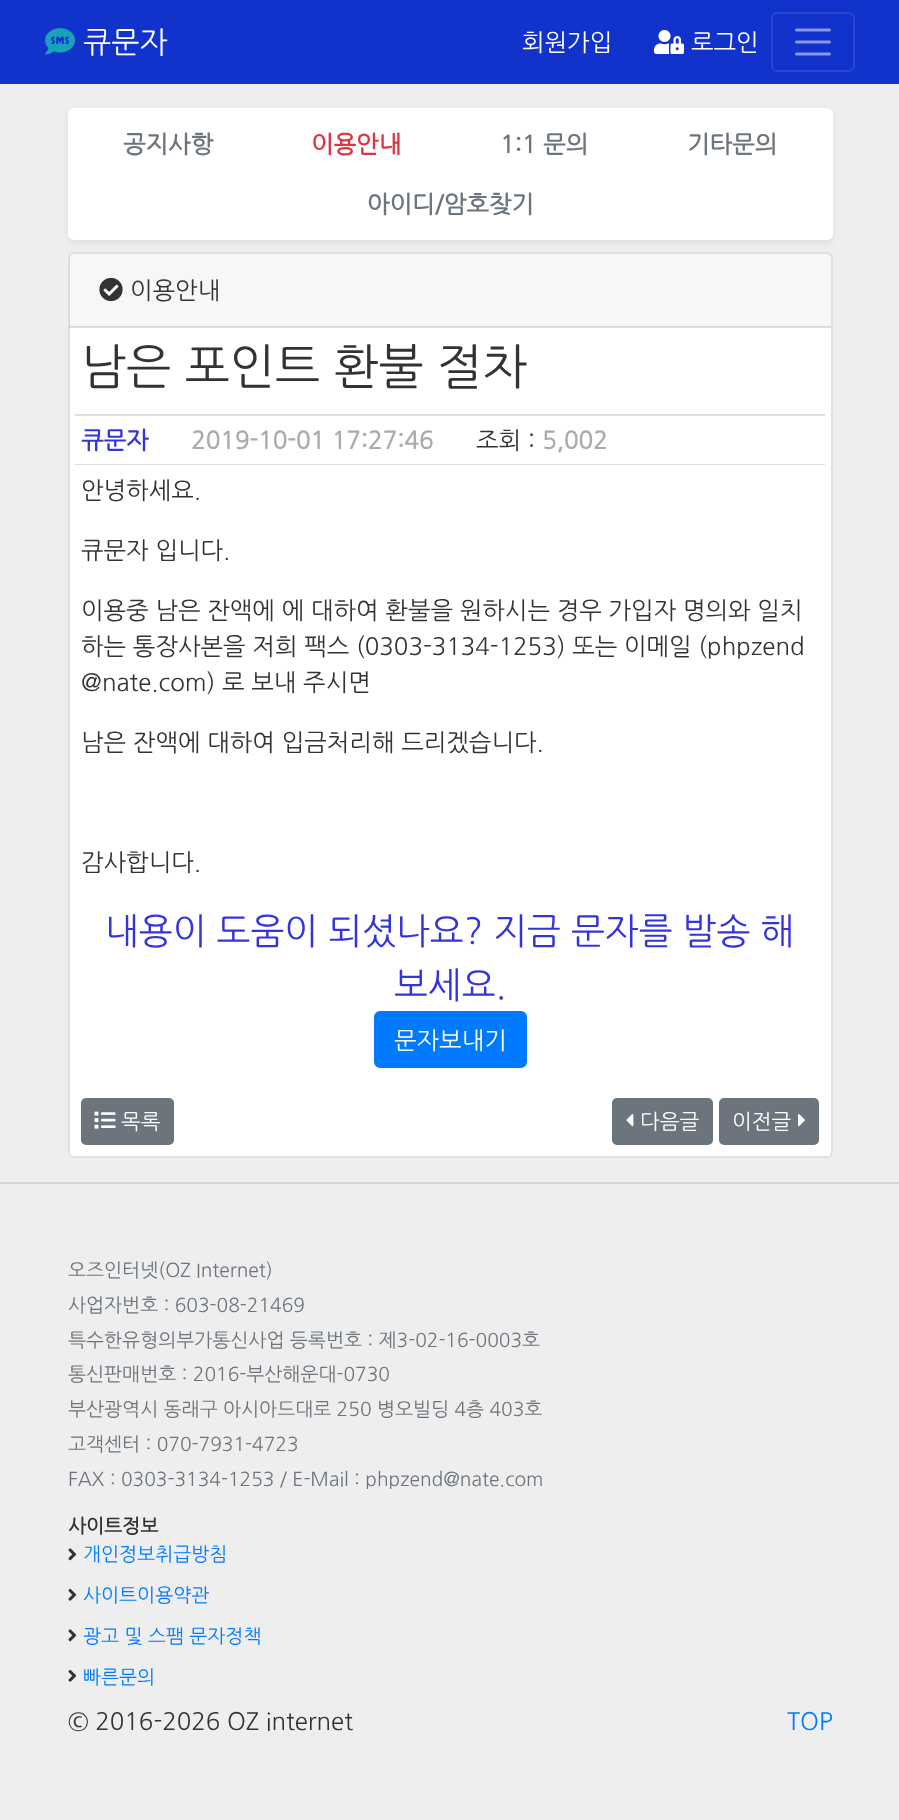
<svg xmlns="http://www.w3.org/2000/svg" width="899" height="1820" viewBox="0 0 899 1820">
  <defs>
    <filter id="blur1" x="-50%" y="-200%" width="200%" height="500%"><feGaussianBlur stdDeviation="3"/></filter>
  </defs>
  <rect width="100%" height="100%" fill="#eeeeee"/>
  <rect x="0" y="0" width="899" height="84" fill="#1133cc"/>
  <image x="45" y="28" width="30" height="27" href="img1.png"/>
  <text x="83" y="53" font-family="NanumGothic" font-size="30" fill="#ffffff">큐문자</text>
  <text x="522" y="51" font-family="NanumGothic" font-size="24" fill="#ffffff">회원가입</text>
  <image x="654" y="30" width="30" height="24" href="img2.png"/>
  <text x="691" y="51" font-family="NanumGothic" font-size="24" fill="#ffffff">로그인</text>
  <rect x="772" y="13" width="82" height="58" rx="5" fill="none" stroke="#2947d1" stroke-width="2"/>
  <path d="M796.5 30H829.5M796.5 42H829.5M796.5 54H829.5" fill="none" stroke="#8899e6" stroke-width="3" stroke-linecap="round"/>
  <rect x="68" y="111" width="765" height="132" rx="6" fill="#000000" fill-opacity="0.07" filter="url(#blur1)"/>
  <rect x="68" y="108" width="765" height="132" rx="6" fill="#ffffff"/>
  <text x="123" y="153" font-family="NanumGothic" font-size="24" font-weight="bold" fill="#6c757d">공지사항</text>
  <text x="311" y="153" font-family="NanumGothic" font-size="24" font-weight="bold" fill="#dc3545">이용안내</text>
  <text x="500" y="153" font-family="NanumGothic" font-size="24" font-weight="bold" fill="#6c757d">1:1 문의</text>
  <text x="687" y="153" font-family="NanumGothic" font-size="24" font-weight="bold" fill="#6c757d">기타문의</text>
  <text x="367" y="213" font-family="NanumGothic" font-size="24" font-weight="bold" fill="#6c757d">아이디/암호찾기</text>
  <rect x="68" y="252" width="765" height="906" rx="6" fill="#ffffff"/>
  <rect x="69" y="253" width="763" height="904" rx="5" fill="none" stroke="#000000" stroke-opacity="0.12" stroke-width="2"/>
  <rect x="69" y="254" width="762" height="73" fill="#000000" fill-opacity="0.03"/>
  <rect x="69" y="326" width="762" height="2" fill="#000000" fill-opacity="0.12"/>
  <image x="99" y="277" width="24" height="25" href="img3.png"/>
  <text x="130" y="299" font-family="NanumGothic" font-size="24" fill="#333333">이용안내</text>
  <rect x="75" y="414" width="750" height="2" fill="#dfdfdf"/>
  <text x="81" y="384" font-family="NanumGothic" font-size="48" fill="#333333">남은 포인트 환불 절차</text>
  <rect x="75" y="464" width="750" height="1" fill="#dfdfdf"/>
  <text x="81" y="449" font-family="NanumGothic" font-size="24" font-weight="bold" fill="#3434dd">큐문자</text>
  <text x="191" y="449" font-family="NanumGothic" font-size="24" font-weight="bold" fill="#ababab">2019-10-01 17:27:46</text>
  <text x="476" y="449" font-family="NanumGothic" font-size="24" fill="#333333">조회 :</text>
  <text x="542" y="449" font-family="NanumGothic" font-size="24" font-weight="bold" fill="#ababab">5,002</text>
  <text x="81" y="499" font-family="NanumGothic" font-size="24" fill="#333333">안녕하세요.</text>
  <text x="81" y="559" font-family="NanumGothic" font-size="24" fill="#333333">큐문자 입니다.</text>
  <text x="81" y="619" font-family="NanumGothic" font-size="24" fill="#333333">이용중 남은 잔액에 에 대하여 환불을 원하시는 경우 가입자 명의와 일치</text>
  <text x="81" y="655" font-family="NanumGothic" font-size="24" fill="#333333">하는 통장사본을 저희 팩스 (0303-3134-1253) 또는 이메일 (phpzend</text>
  <text x="81" y="691" font-family="NanumGothic" font-size="24" fill="#333333">@nate.com) 로 보내 주시면</text>
  <text x="81" y="751" font-family="NanumGothic" font-size="24" fill="#333333">남은 잔액에 대하여 입금처리해 드리겠습니다.</text>
  <text x="81" y="871" font-family="NanumGothic" font-size="24" fill="#333333">감사합니다.</text>
  <text x="105" y="944" font-family="NanumGothic" font-size="36" fill="#3434dd">내용이 도움이 되셨나요? 지금 문자를 발송 해</text>
  <text x="394" y="998" font-family="NanumGothic" font-size="36" fill="#3434dd">보세요.</text>
  <rect x="375" y="1012" width="151" height="55" rx="5" fill="#007bff" stroke="#007bff" stroke-width="2"/>
  <text x="394" y="1049" font-family="NanumGothic" font-size="24" fill="#ffffff">문자보내기</text>
  <rect x="82" y="1099" width="91" height="45" rx="4" fill="#6c757d" stroke="#6c757d" stroke-width="2"/>
  <image x="94" y="1111" width="22" height="18" href="img4.png"/>
  <text x="121" y="1129" font-family="NanumGothic" font-size="21" fill="#ffffff">목록</text>
  <rect x="613" y="1099" width="99" height="45" rx="4" fill="#6c757d" stroke="#6c757d" stroke-width="2"/>
  <image x="626" y="1114" width="8" height="13" href="img5.png"/>
  <text x="640" y="1129" font-family="NanumGothic" font-size="21" fill="#ffffff">다음글</text>
  <rect x="720" y="1099" width="98" height="45" rx="4" fill="#6c757d" stroke="#6c757d" stroke-width="2"/>
  <text x="732" y="1129" font-family="NanumGothic" font-size="21" fill="#ffffff">이전글</text>
  <image x="798" y="1114" width="7" height="13" href="img6.png"/>
  <rect x="0" y="1182" width="899" height="2" fill="#d6d6d6"/>
  <text x="68" y="1277" font-family="NanumGothic" font-size="19.2" fill="#6c757d">오즈인터넷(OZ Internet)</text>
  <text x="68" y="1312" font-family="NanumGothic" font-size="19.2" fill="#6c757d">사업자번호 : 603-08-21469</text>
  <text x="68" y="1347" font-family="NanumGothic" font-size="19.2" fill="#6c757d">특수한유형의부가통신사업 등록번호 : 제3-02-16-0003호</text>
  <text x="68" y="1381" font-family="NanumGothic" font-size="19.2" fill="#6c757d">통신판매번호 : 2016-부산해운대-0730</text>
  <text x="68" y="1416" font-family="NanumGothic" font-size="19.2" fill="#6c757d">부산광역시 동래구 아시아드대로 250 병오빌딩 4층 403호</text>
  <text x="68" y="1451" font-family="NanumGothic" font-size="19.2" fill="#6c757d">고객센터 : 070-7931-4723</text>
  <text x="68" y="1486" font-family="NanumGothic" font-size="19.2" fill="#6c757d">FAX : 0303-3134-1253 / E-Mail : phpzend@nate.com</text>
  <text x="68" y="1533" font-family="NanumGothic" font-size="19.2" font-weight="bold" fill="#333333">사이트정보</text>
  <image x="68" y="1548" width="9" height="13" href="img7.png"/>
  <text x="83" y="1561" font-family="NanumGothic" font-size="19.2" fill="#007bff">개인정보취급방침</text>
  <image x="68" y="1588" width="9" height="13" href="img8.png"/>
  <text x="83" y="1602" font-family="NanumGothic" font-size="19.2" fill="#007bff">사이트이용약관</text>
  <image x="68" y="1629" width="9" height="13" href="img7.png"/>
  <text x="83" y="1643" font-family="NanumGothic" font-size="19.2" fill="#007bff">광고 및 스팸 문자정책</text>
  <image x="68" y="1669" width="9" height="13" href="img8.png"/>
  <text x="83" y="1684" font-family="NanumGothic" font-size="19.2" fill="#007bff">빠른문의</text>
  <text x="68" y="1730" font-family="NanumGothic" font-size="24" fill="#333333">© 2016-2026 OZ internet</text>
  <text x="787" y="1730" font-family="NanumGothic" font-size="24" fill="#007bff">TOP</text>
</svg>
